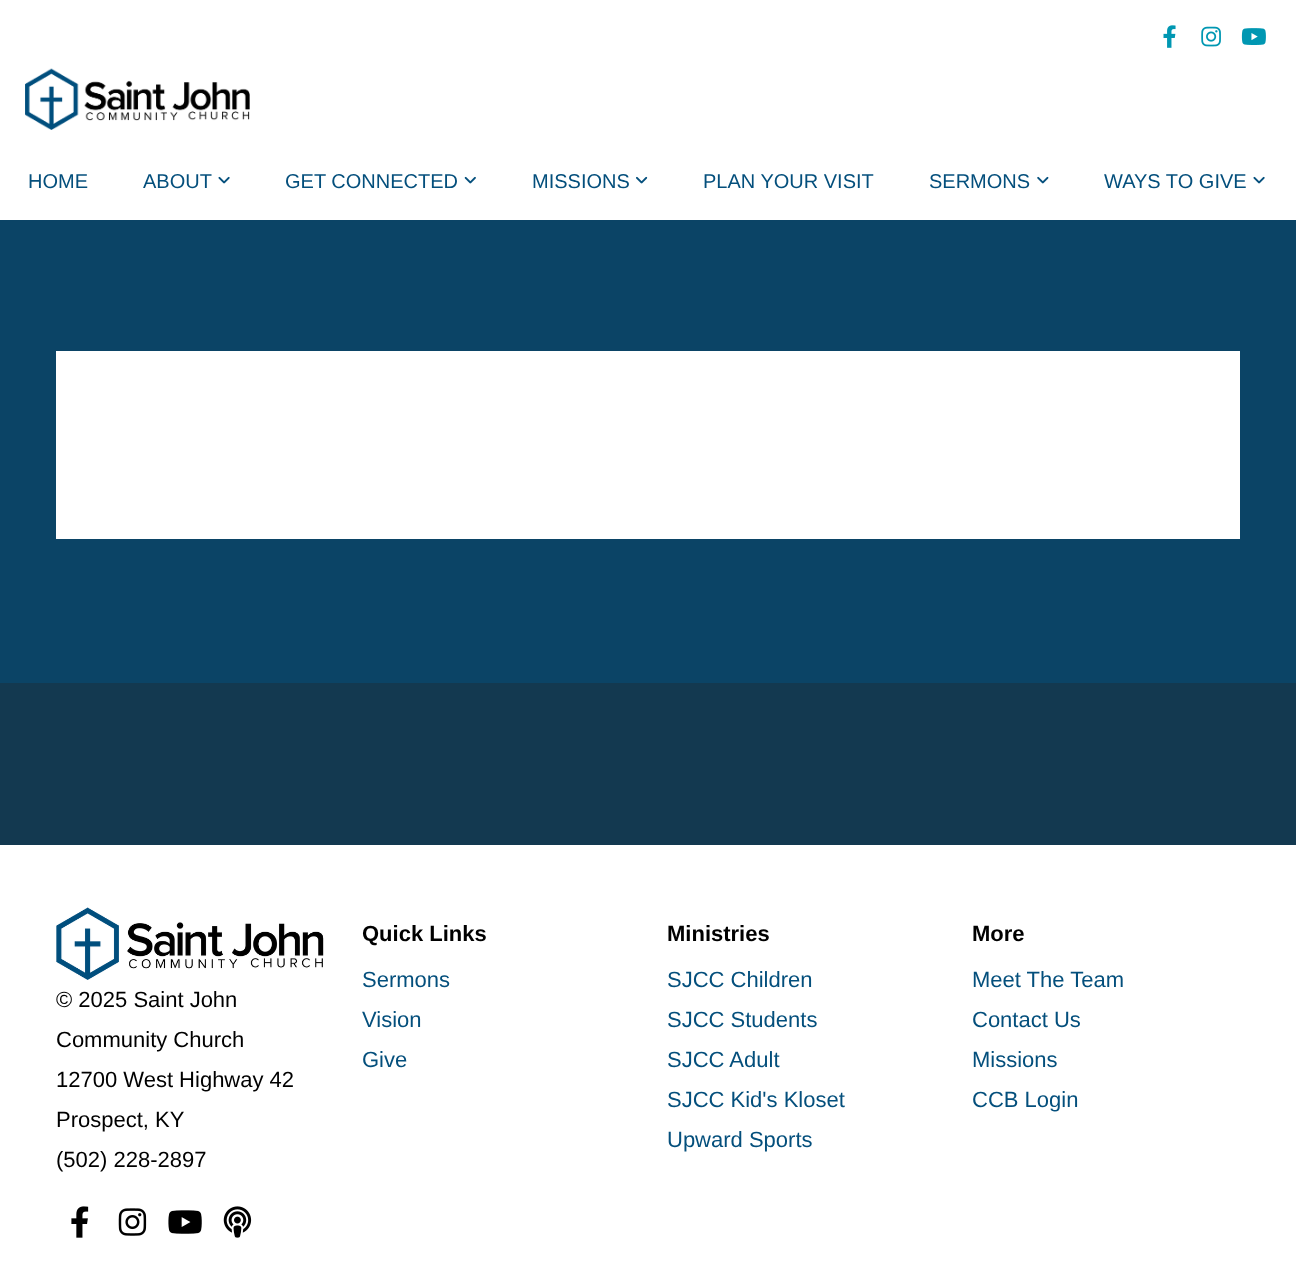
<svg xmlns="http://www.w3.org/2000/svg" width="1296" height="1264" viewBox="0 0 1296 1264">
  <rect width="100%" height="100%" fill="#133950"/>
  <rect x="0" y="0" width="1296" height="220" fill="#ffffff"/>
  <image x="1163" y="25" width="13" height="23" href="img1.png"/>
  <image x="1201" y="26" width="20" height="21" href="img2.png"/>
  <image x="1241" y="28" width="25" height="17" href="img3.png"/>
  <image x="25" y="68" width="225" height="62" href="img4.png"/>
  <text x="28" y="188" font-family="Liberation Sans" font-size="20" fill="#044f7c">HOME</text>
  <text x="143" y="188" font-family="Liberation Sans" font-size="20" fill="#044f7c">ABOUT</text>
  <image x="218" y="176" width="12" height="8" href="img5.png"/>
  <text x="285" y="188" font-family="Liberation Sans" font-size="20" fill="#044f7c">GET CONNECTED</text>
  <image x="464" y="176" width="12" height="8" href="img6.png"/>
  <text x="532" y="188" font-family="Liberation Sans" font-size="20" fill="#044f7c">MISSIONS</text>
  <image x="636" y="176" width="12" height="8" href="img7.png"/>
  <text x="703" y="188" font-family="Liberation Sans" font-size="20" fill="#044f7c">PLAN YOUR VISIT</text>
  <text x="929" y="188" font-family="Liberation Sans" font-size="20" fill="#044f7c">SERMONS</text>
  <image x="1037" y="176" width="12" height="8" href="img8.png"/>
  <text x="1104" y="188" font-family="Liberation Sans" font-size="20" fill="#044f7c">WAYS TO GIVE</text>
  <image x="1253" y="176" width="12" height="8" href="img5.png"/>
  <rect x="0" y="220" width="1296" height="463" fill="#0b4466"/>
  <rect x="56" y="351" width="1184" height="188" fill="#ffffff"/>
  <rect x="0" y="845" width="1296" height="419" fill="#ffffff"/>
  <image x="56" y="907" width="268" height="73" href="img9.png"/>
  <text x="56" y="1007" font-family="Liberation Sans" font-size="22" fill="#000000">© 2025 Saint John</text>
  <text x="56" y="1047" font-family="Liberation Sans" font-size="22" fill="#000000">Community Church</text>
  <text x="56" y="1087" font-family="Liberation Sans" font-size="22" fill="#000000">12700 West Highway 42</text>
  <text x="56" y="1127" font-family="Liberation Sans" font-size="22" fill="#000000">Prospect, KY</text>
  <text x="56" y="1167" font-family="Liberation Sans" font-size="22" fill="#000000">(502) 228-2897</text>
  <image x="71" y="1206" width="18" height="32" href="img10.png"/>
  <image x="118" y="1208" width="29" height="28" href="img11.png"/>
  <image x="168" y="1210" width="34" height="24" href="img12.png"/>
  <image x="223" y="1206" width="29" height="32" href="img13.png"/>
  <text x="362" y="941" font-family="Liberation Sans" font-size="22" font-weight="bold" fill="#000000">Quick Links</text>
  <text x="362" y="987" font-family="Liberation Sans" font-size="22" fill="#044f7c">Sermons</text>
  <text x="362" y="1027" font-family="Liberation Sans" font-size="22" fill="#044f7c">Vision</text>
  <text x="362" y="1067" font-family="Liberation Sans" font-size="22" fill="#044f7c">Give</text>
  <text x="667" y="941" font-family="Liberation Sans" font-size="22" font-weight="bold" fill="#000000">Ministries</text>
  <text x="667" y="987" font-family="Liberation Sans" font-size="22" fill="#044f7c">SJCC Children</text>
  <text x="667" y="1027" font-family="Liberation Sans" font-size="22" fill="#044f7c">SJCC Students</text>
  <text x="667" y="1067" font-family="Liberation Sans" font-size="22" fill="#044f7c">SJCC Adult</text>
  <text x="667" y="1107" font-family="Liberation Sans" font-size="22" fill="#044f7c">SJCC Kid's Kloset</text>
  <text x="667" y="1147" font-family="Liberation Sans" font-size="22" fill="#044f7c">Upward Sports</text>
  <text x="972" y="941" font-family="Liberation Sans" font-size="22" font-weight="bold" fill="#000000">More</text>
  <text x="972" y="987" font-family="Liberation Sans" font-size="22" fill="#044f7c">Meet The Team</text>
  <text x="972" y="1027" font-family="Liberation Sans" font-size="22" fill="#044f7c">Contact Us</text>
  <text x="972" y="1067" font-family="Liberation Sans" font-size="22" fill="#044f7c">Missions</text>
  <text x="972" y="1107" font-family="Liberation Sans" font-size="22" fill="#044f7c">CCB Login</text>
</svg>
